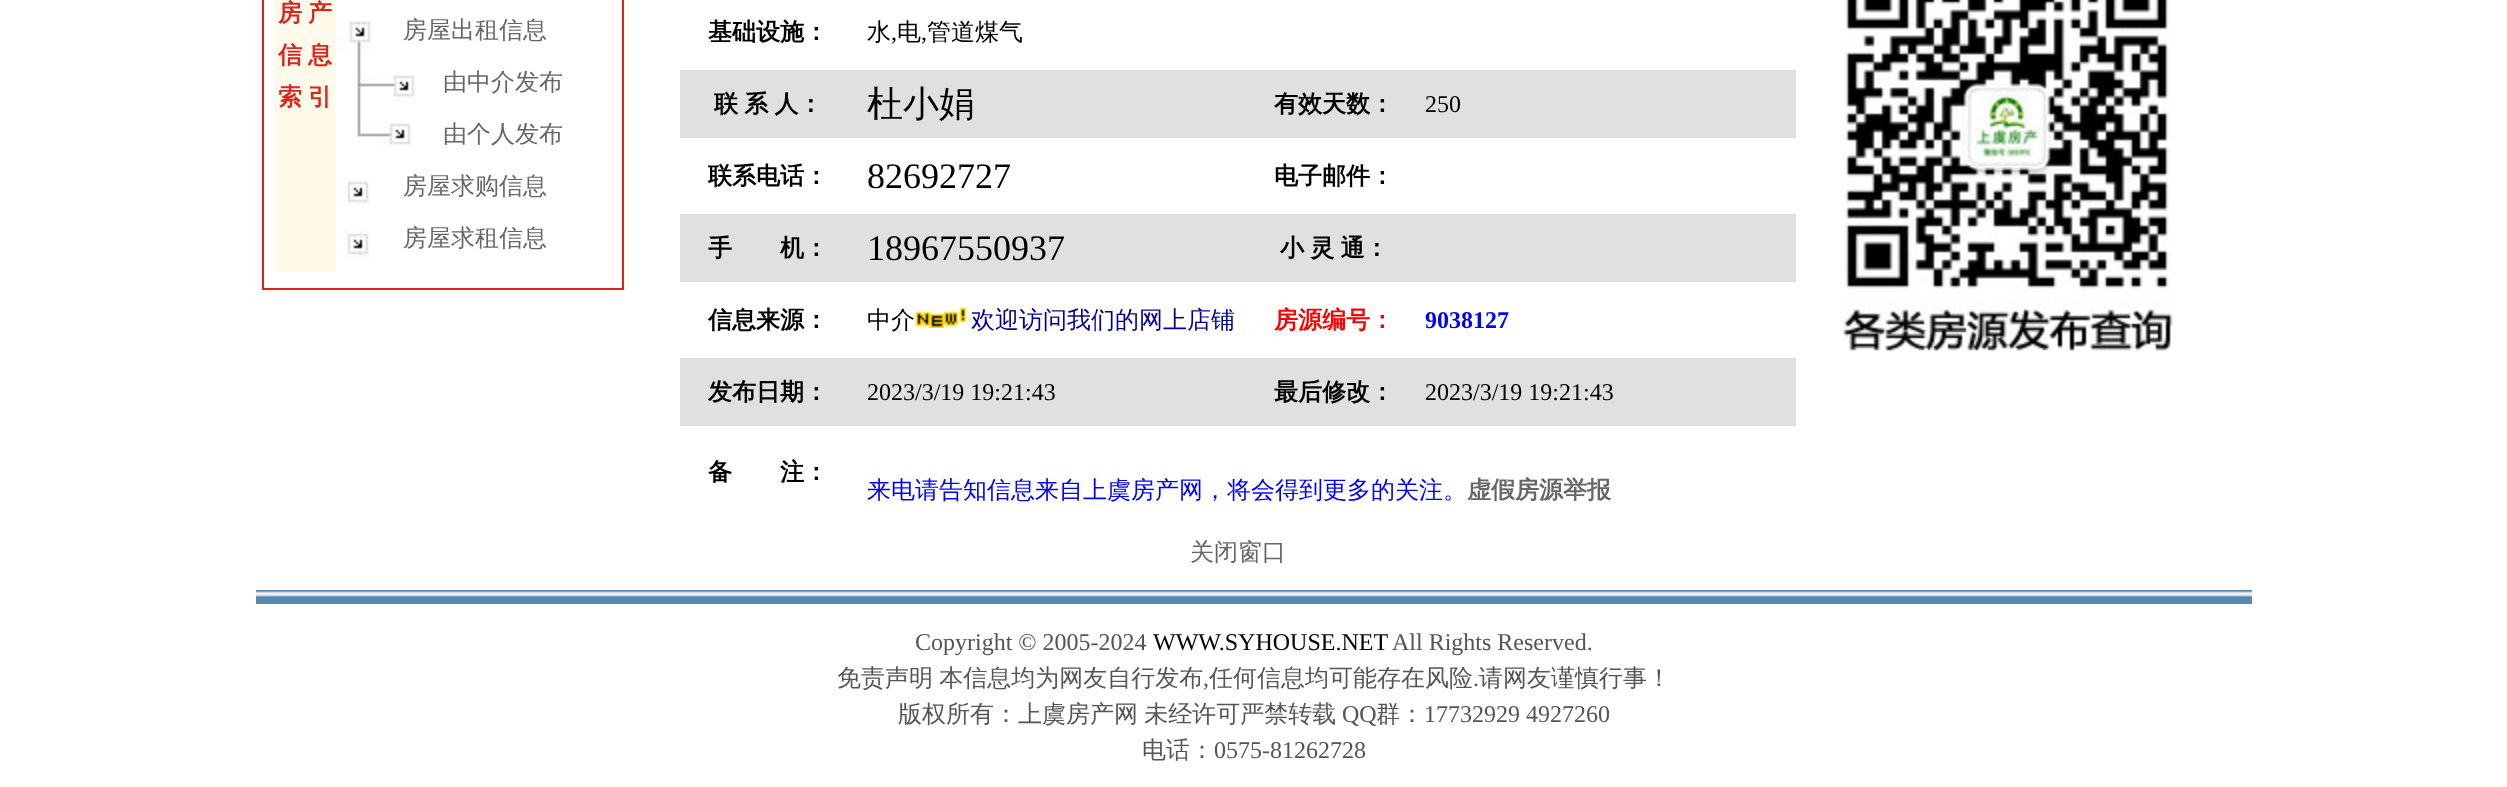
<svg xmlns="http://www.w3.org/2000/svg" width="2507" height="787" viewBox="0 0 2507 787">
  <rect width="100%" height="100%" fill="#ffffff"/>
  <rect x="263" y="-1" width="360" height="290" fill="none" stroke="#da251c" stroke-width="2"/>
  <rect x="274" y="0" width="62" height="272" fill="#fffaea"/>
  <text x="278" y="21" font-family="WenQuanYi Zen Hei" font-size="24" font-weight="bold" fill="#da251c">房</text>
  <text x="308" y="21" font-family="WenQuanYi Zen Hei" font-size="24" font-weight="bold" fill="#da251c">产</text>
  <text x="278" y="63" font-family="WenQuanYi Zen Hei" font-size="24" font-weight="bold" fill="#da251c">信</text>
  <text x="308" y="63" font-family="WenQuanYi Zen Hei" font-size="24" font-weight="bold" fill="#da251c">息</text>
  <text x="278" y="105" font-family="WenQuanYi Zen Hei" font-size="24" font-weight="bold" fill="#da251c">索</text>
  <text x="308" y="105" font-family="WenQuanYi Zen Hei" font-size="24" font-weight="bold" fill="#da251c">引</text>
  <image x="338" y="20" width="33" height="36" href="img1.png"/>
  <text x="403" y="38" font-family="WenQuanYi Zen Hei" font-size="24" font-weight="500" fill="#666666">房屋出租信息</text>
  <image x="355" y="56" width="23" height="52" href="img2.png"/>
  <image x="378" y="72" width="38" height="32" href="img3.png"/>
  <text x="443" y="90" font-family="WenQuanYi Zen Hei" font-size="24" font-weight="500" fill="#666666">由中介发布</text>
  <image x="356" y="108" width="22" height="30" href="img4.png"/>
  <image x="378" y="123" width="33" height="23" href="img5.png"/>
  <text x="443" y="142" font-family="WenQuanYi Zen Hei" font-size="24" font-weight="500" fill="#666666">由个人发布</text>
  <image x="338" y="176" width="32" height="30" href="img6.png"/>
  <text x="403" y="194" font-family="WenQuanYi Zen Hei" font-size="24" font-weight="500" fill="#666666">房屋求购信息</text>
  <image x="343" y="230" width="27" height="29" href="img7.png"/>
  <text x="403" y="246" font-family="WenQuanYi Zen Hei" font-size="24" font-weight="500" fill="#666666">房屋求租信息</text>
  <text x="708" y="40" font-family="WenQuanYi Zen Hei" font-size="24" font-weight="bold" fill="#000000">基础设施：</text>
  <text x="867" y="40" font-family="WenQuanYi Zen Hei" font-size="24" font-weight="500" fill="#000000">水</text>
  <text x="891" y="40" font-family="Liberation Serif" font-size="24" fill="#000000">,</text>
  <text x="897" y="40" font-family="WenQuanYi Zen Hei" font-size="24" font-weight="500" fill="#000000">电</text>
  <text x="921" y="40" font-family="Liberation Serif" font-size="24" fill="#000000">,</text>
  <text x="927" y="40" font-family="WenQuanYi Zen Hei" font-size="24" font-weight="500" fill="#000000">管道煤气</text>
  <rect x="680" y="70" width="1116" height="68" fill="#e0e0e0"/>
  <text x="714" y="112" word-spacing="-1" font-family="WenQuanYi Zen Hei" font-size="24" font-weight="bold" fill="#000000">联 系 人：</text>
  <text x="867" y="116" font-family="WenQuanYi Zen Hei" font-size="36" font-weight="500" fill="#000000">杜小娟</text>
  <text x="1274" y="112" font-family="WenQuanYi Zen Hei" font-size="24" font-weight="bold" fill="#000000">有效天数：</text>
  <text x="1425" y="112" font-family="Liberation Serif" font-size="24" fill="#000000">250</text>
  <text x="708" y="184" font-family="WenQuanYi Zen Hei" font-size="24" font-weight="bold" fill="#000000">联系电话：</text>
  <text x="867" y="188" font-family="Liberation Serif" font-size="36" fill="#000000">82692727</text>
  <text x="1274" y="184" font-family="WenQuanYi Zen Hei" font-size="24" font-weight="bold" fill="#000000">电子邮件：</text>
  <rect x="680" y="214" width="1116" height="68" fill="#e0e0e0"/>
  <text x="708" y="256" font-family="WenQuanYi Zen Hei" font-size="24" font-weight="bold" fill="#000000">手　　机：</text>
  <text x="867" y="260" font-family="Liberation Serif" font-size="36" fill="#000000">18967550937</text>
  <text x="1280" y="256" word-spacing="-1" font-family="WenQuanYi Zen Hei" font-size="24" font-weight="bold" fill="#000000">小 灵 通：</text>
  <text x="708" y="328" font-family="WenQuanYi Zen Hei" font-size="24" font-weight="bold" fill="#000000">信息来源：</text>
  <text x="867" y="328" font-family="WenQuanYi Zen Hei" font-size="24" font-weight="500" fill="#000000">中介</text>
  <image x="915" y="307" width="52" height="21" href="img8.png"/>
  <text x="971" y="328" font-family="WenQuanYi Zen Hei" font-size="24" font-weight="500" fill="#000099">欢迎访问我们的网上店铺</text>
  <text x="1274" y="328" font-family="WenQuanYi Zen Hei" font-size="24" font-weight="bold" fill="#ff0000">房源编号：</text>
  <text x="1425" y="328" font-family="Liberation Serif" font-size="24" font-weight="bold" fill="#0000ff">9038127</text>
  <rect x="680" y="358" width="1116" height="68" fill="#e0e0e0"/>
  <text x="708" y="400" font-family="WenQuanYi Zen Hei" font-size="24" font-weight="bold" fill="#000000">发布日期：</text>
  <text x="867" y="400" font-family="Liberation Serif" font-size="24" fill="#000000">2023/3/19 19:21:43</text>
  <text x="1274" y="400" font-family="WenQuanYi Zen Hei" font-size="24" font-weight="bold" fill="#000000">最后修改：</text>
  <text x="1425" y="400" font-family="Liberation Serif" font-size="24" fill="#000000">2023/3/19 19:21:43</text>
  <text x="708" y="480" font-family="WenQuanYi Zen Hei" font-size="24" font-weight="bold" fill="#000000">备　　注：</text>
  <text x="867" y="498" font-family="WenQuanYi Zen Hei" font-size="24" font-weight="500" fill="#0000ff">来电请告知信息来自上虞房产网，将会得到更多的关注。</text>
  <text x="1467" y="498" font-family="WenQuanYi Zen Hei" font-size="24" font-weight="bold" fill="#666666">虚假房源举报</text>
  <text x="1190" y="560" font-family="WenQuanYi Zen Hei" font-size="24" font-weight="500" fill="#666666">关闭窗口</text>
  <image x="1842" y="0" width="331" height="351" href="img9.png"/>
  <image x="256" y="590" width="1996" height="14" href="img10.png"/>
  <text x="915" y="650" font-family="Liberation Serif" font-size="24" fill="#555555">Copyright © 2005-2024</text>
  <text x="1153" y="650" font-family="Liberation Serif" font-size="24" fill="#000000">WWW.SYHOUSE.NET</text>
  <text x="1392" y="650" font-family="Liberation Serif" font-size="24" fill="#555555">All Rights Reserved.</text>
  <text x="837" y="686" word-spacing="-1" font-family="WenQuanYi Zen Hei" font-size="24" font-weight="500" fill="#555555">免责声明 本信息均为网友自行发布</text>
  <text x="1203" y="686" font-family="Liberation Serif" font-size="24" fill="#555555">,</text>
  <text x="1209" y="686" font-family="WenQuanYi Zen Hei" font-size="24" font-weight="500" fill="#555555">任何信息均可能存在风险</text>
  <text x="1473" y="686" font-family="Liberation Serif" font-size="24" fill="#555555">.</text>
  <text x="1479" y="686" font-family="WenQuanYi Zen Hei" font-size="24" font-weight="500" fill="#555555">请网友谨慎行事！</text>
  <text x="898" y="722" word-spacing="-1" font-family="WenQuanYi Zen Hei" font-size="24" font-weight="500" fill="#555555">版权所有：上虞房产网 未经许可严禁转载</text>
  <text x="1342" y="722" font-family="Liberation Serif" font-size="24" fill="#555555">QQ</text>
  <text x="1376" y="722" font-family="WenQuanYi Zen Hei" font-size="24" font-weight="500" fill="#555555">群：</text>
  <text x="1424" y="722" font-family="Liberation Serif" font-size="24" fill="#555555">17732929 4927260</text>
  <text x="1142" y="758" font-family="WenQuanYi Zen Hei" font-size="24" font-weight="500" fill="#555555">电话：</text>
  <text x="1214" y="758" font-family="Liberation Serif" font-size="24" fill="#555555">0575-81262728</text>
</svg>
